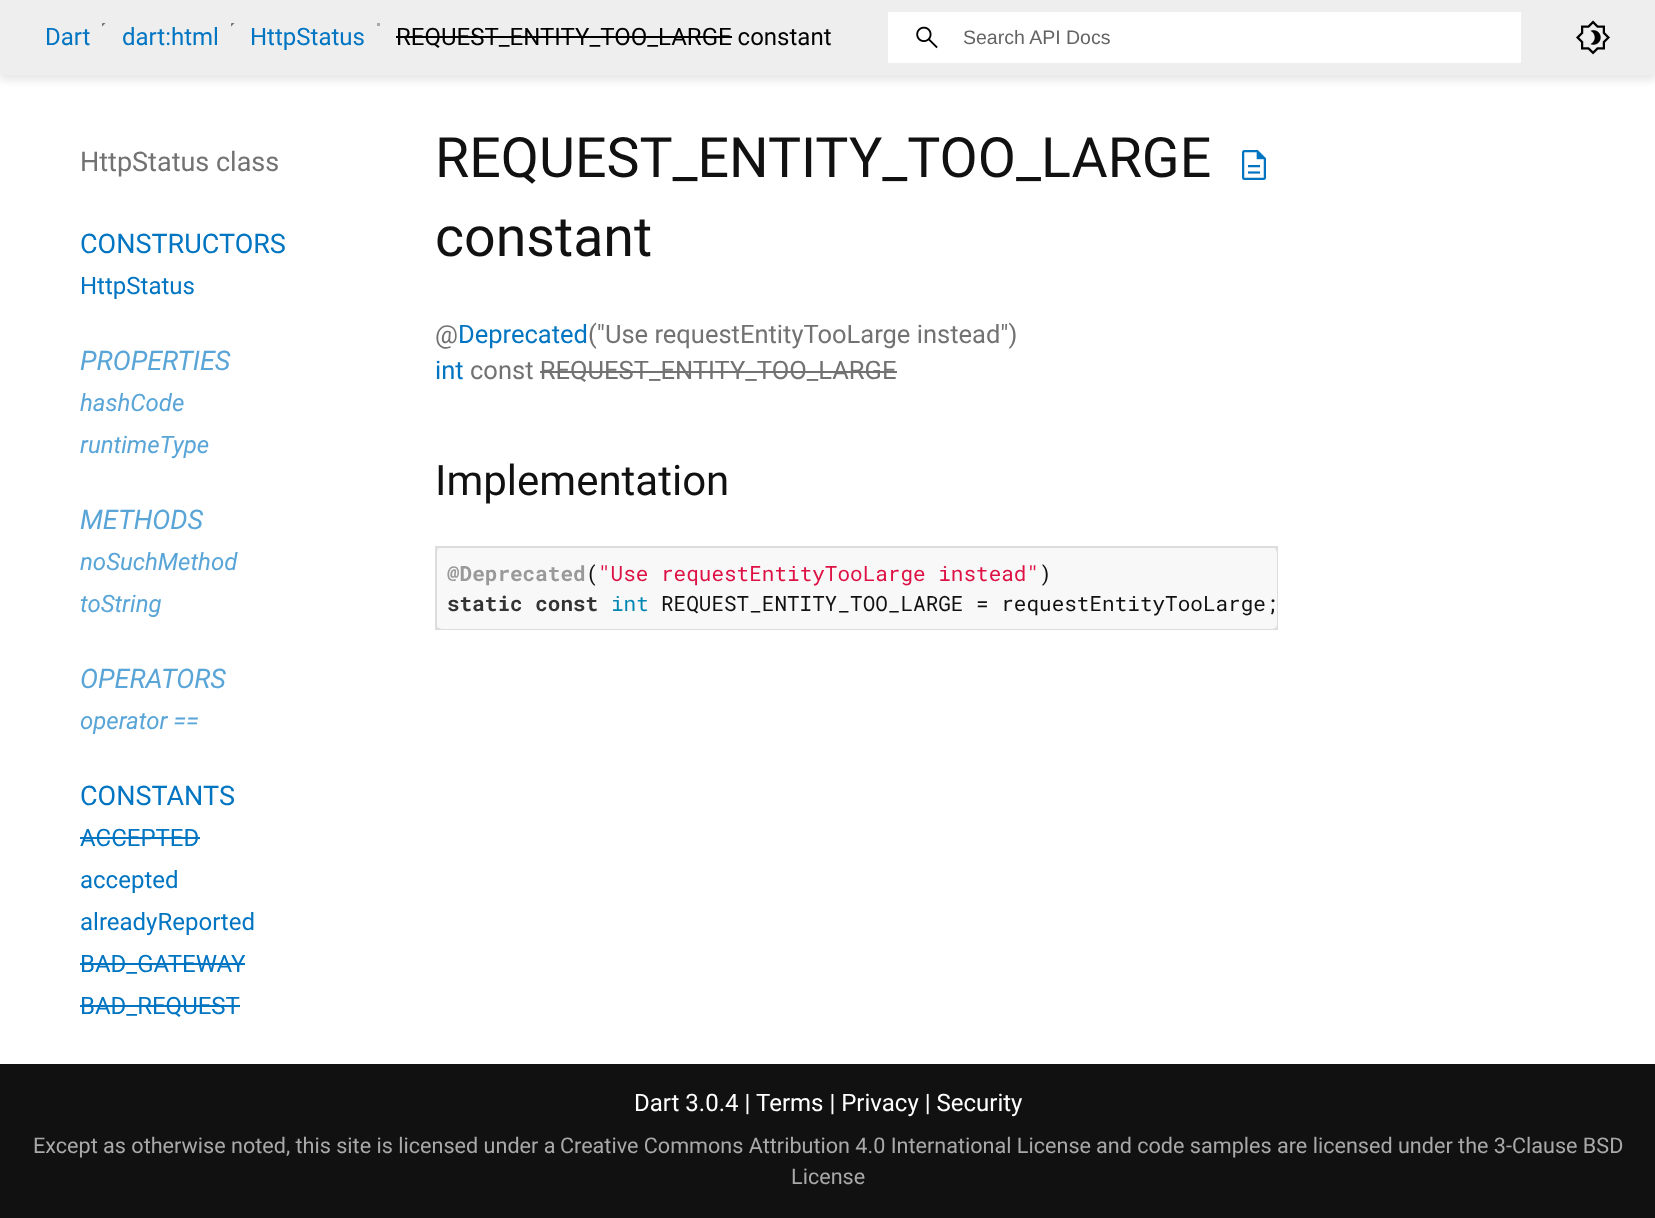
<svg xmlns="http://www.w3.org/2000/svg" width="1655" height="1218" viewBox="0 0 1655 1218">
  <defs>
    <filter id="blur1" x="-50%" y="-200%" width="200%" height="500%"><feGaussianBlur stdDeviation="4"/></filter>
  </defs>
  <rect width="100%" height="100%" fill="#ffffff"/>
  <rect x="0" y="5" width="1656" height="75" fill="#000000" fill-opacity="0.1" filter="url(#blur1)"/>
  <rect x="0" y="0" width="1655" height="75" fill="#eeeeee"/>
  <text x="45" y="45" font-family="Roboto" font-size="24" fill="#0175c2">Dart</text>
  <image x="102" y="23" width="4" height="4" href="img1.png"/>
  <text x="122" y="45" font-family="Roboto" font-size="24" fill="#0175c2">dart:html</text>
  <image x="231" y="23" width="4" height="4" href="img1.png"/>
  <text x="250" y="45" font-family="Roboto" font-size="24" fill="#0175c2">HttpStatus</text>
  <rect x="377" y="23" width="3" height="3" fill="#a9a9a9"/>
  <text x="396" y="45" font-family="Roboto" font-size="24" fill="#000000">REQUEST_ENTITY_TOO_LARGE constant</text>
  <rect x="396" y="36" width="336" height="2" fill="#000000"/>
  <rect x="888" y="12" width="633" height="51" fill="#ffffff"/>
  <image x="916" y="26" width="22" height="23" href="img2.png"/>
  <text x="963" y="44" font-family="Liberation Sans" font-size="19.5" fill="#636363">Search API Docs</text>
  <image x="1576" y="20" width="34" height="35" href="img3.png"/>
  <text x="80" y="171" font-family="Roboto" font-size="27" fill="#727272">HttpStatus class</text>
  <text x="80" y="253" font-family="Roboto" font-size="27" fill="#0175c2">CONSTRUCTORS</text>
  <text x="80" y="294" font-family="Roboto" font-size="24" fill="#0175c2">HttpStatus</text>
  <text x="80" y="370" font-family="Roboto" font-size="27" font-style="italic" fill="#5aa5d7">PROPERTIES</text>
  <text x="80" y="411" font-family="Roboto" font-size="24" font-style="italic" fill="#5aa5d7">hashCode</text>
  <text x="80" y="453" font-family="Roboto" font-size="24" font-style="italic" fill="#5aa5d7">runtimeType</text>
  <text x="80" y="529" font-family="Roboto" font-size="27" font-style="italic" fill="#5aa5d7">METHODS</text>
  <text x="80" y="570" font-family="Roboto" font-size="24" font-style="italic" fill="#5aa5d7">noSuchMethod</text>
  <text x="80" y="612" font-family="Roboto" font-size="24" font-style="italic" fill="#5aa5d7">toString</text>
  <text x="80" y="688" font-family="Roboto" font-size="27" font-style="italic" fill="#5aa5d7">OPERATORS</text>
  <text x="80" y="729" font-family="Roboto" font-size="24" font-style="italic" fill="#5aa5d7">operator ==</text>
  <text x="80" y="805" font-family="Roboto" font-size="27" fill="#0175c2">CONSTANTS</text>
  <text x="80" y="846" font-family="Roboto" font-size="24" fill="#0175c2">ACCEPTED</text>
  <rect x="80" y="837" width="120" height="2" fill="#0175c2"/>
  <text x="80" y="888" font-family="Roboto" font-size="24" fill="#0175c2">accepted</text>
  <text x="80" y="930" font-family="Roboto" font-size="24" fill="#0175c2">alreadyReported</text>
  <text x="80" y="972" font-family="Roboto" font-size="24" fill="#0175c2">BAD_GATEWAY</text>
  <rect x="80" y="963" width="165" height="2" fill="#0175c2"/>
  <text x="80" y="1014" font-family="Roboto" font-size="24" fill="#0175c2">BAD_REQUEST</text>
  <rect x="80" y="1005" width="160" height="2" fill="#0175c2"/>
  <text x="435" y="177" font-family="Roboto" font-size="55.5" fill="#111111">REQUEST_ENTITY_TOO_LARGE</text>
  <text x="435" y="256" font-family="Roboto" font-size="55.5" fill="#111111">constant</text>
  <image x="1242" y="150" width="24" height="30" href="img4.png"/>
  <text x="435" y="343" font-family="Roboto" font-size="25.5" fill="#727272">@</text>
  <text x="458" y="343" font-family="Roboto" font-size="25.5" fill="#0175c2">Deprecated</text>
  <text x="588" y="343" font-family="Roboto" font-size="25.5" fill="#727272">("Use requestEntityTooLarge instead")</text>
  <text x="435" y="379" font-family="Roboto" font-size="25.5" fill="#0175c2">int</text>
  <text x="470" y="379" font-family="Roboto" font-size="25.5" fill="#727272">const REQUEST_ENTITY_TOO_LARGE</text>
  <rect x="540" y="371" width="357" height="2" fill="#727272"/>
  <text x="435" y="495" font-family="Roboto" font-size="42" fill="#111111">Implementation</text>
  <rect x="436" y="547" width="841" height="82" fill="#eeeeee" stroke="#dddddd" stroke-width="2"/>
  <rect x="437" y="548" width="840" height="81" rx="5" fill="#f8f8f8"/>
  <text x="447" y="581" font-family="Roboto Mono" font-size="21" font-weight="bold" fill="#999999">@Deprecated</text>
  <text x="586" y="581" font-family="Roboto Mono" font-size="21" fill="#111111">(</text>
  <text x="598" y="581" font-family="Roboto Mono" font-size="21" fill="#dd1144">"Use requestEntityTooLarge instead"</text>
  <text x="1039" y="581" font-family="Roboto Mono" font-size="21" fill="#111111">)</text>
  <text x="447" y="611" font-family="Roboto Mono" font-size="21" font-weight="bold" fill="#333333">static const</text>
  <text x="611" y="611" font-family="Roboto Mono" font-size="21" fill="#0086b3">int</text>
  <text x="661" y="611" font-family="Roboto Mono" font-size="21" fill="#111111">REQUEST_ENTITY_TOO_LARGE = requestEntityTooLarge;</text>
  <rect x="0" y="1064" width="1655" height="154" fill="#111111"/>
  <text x="756" y="1111" font-family="Roboto" font-size="24" fill="#ffffff">Terms | Privacy | Security</text>
  <text x="33" y="1153" font-family="Roboto" font-size="21.6" fill="#a9a9a9">Except as otherwise noted, this site is licensed under a</text>
  <text x="560" y="1153" font-family="Roboto" font-size="21.6" fill="#a9a9a9">Creative Commons Attribution 4.0 International License</text>
  <text x="1096" y="1153" font-family="Roboto" font-size="21.6" fill="#a9a9a9">and code samples are licensed under the 3-Clause BSD</text>
  <text x="791" y="1184" font-family="Roboto" font-size="21.6" fill="#a9a9a9">License</text>
  <text x="634" y="1111" font-family="Roboto" font-size="24" fill="#ffffff">Dart 3.0.4 |</text>
</svg>
